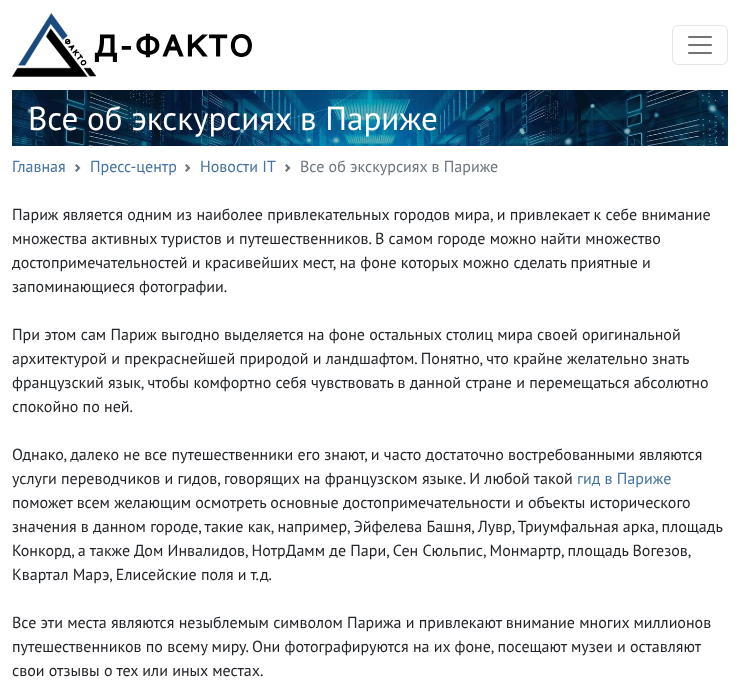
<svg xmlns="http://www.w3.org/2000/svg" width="740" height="697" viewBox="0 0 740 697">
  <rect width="100%" height="100%" fill="#ffffff"/>
  <image x="12" y="13" width="240" height="64" href="img1.png"/>
  <rect x="672.5" y="25.5" width="55" height="39" rx="5.5" fill="none" stroke="#e6e6e6"/>
  <image x="688" y="36" width="24" height="18" href="img2.png"/>
  <image x="12" y="90" width="716" height="56" href="img3.png"/>
  <text x="28" y="130" font-family="PT Sans" font-size="33.1" fill="#ffffff">Все об экскурсиях в Париже</text>
  <text x="12" y="172" font-family="PT Sans" font-size="16" fill="#4472a2">Главная</text>
  <image x="75" y="164" width="6" height="8" href="img4.png"/>
  <text x="90" y="172" font-family="PT Sans" font-size="16" fill="#4472a2">Пресс-центр</text>
  <image x="185" y="164" width="6" height="8" href="img4.png"/>
  <text x="200" y="172" font-family="PT Sans" font-size="16" fill="#4472a2">Новости IT</text>
  <image x="285" y="164" width="6" height="8" href="img4.png"/>
  <text x="300" y="172" font-family="PT Sans" font-size="16" fill="#6c757d">Все об экскурсиях в Париже</text>
  <text x="12" y="220" font-family="PT Sans" font-size="16" fill="#212529">Париж является одним из наиболее привлекательных городов мира, и привлекает к себе внимание</text>
  <text x="12" y="244" font-family="PT Sans" font-size="16" fill="#212529">множества активных туристов и путешественников. В самом городе можно найти множество</text>
  <text x="12" y="268" font-family="PT Sans" font-size="16" fill="#212529">достопримечательностей и красивейших мест, на фоне которых можно сделать приятные и</text>
  <text x="12" y="292" font-family="PT Sans" font-size="16" fill="#212529">запоминающиеся фотографии.</text>
  <text x="12" y="340" font-family="PT Sans" font-size="16" fill="#212529">При этом сам Париж выгодно выделяется на фоне остальных столиц мира своей оригинальной</text>
  <text x="12" y="364" font-family="PT Sans" font-size="16" fill="#212529">архитектурой и прекраснейшей природой и ландшафтом. Понятно, что крайне желательно знать</text>
  <text x="12" y="388" font-family="PT Sans" font-size="16" fill="#212529">французский язык, чтобы комфортно себя чувствовать в данной стране и перемещаться абсолютно</text>
  <text x="12" y="412" font-family="PT Sans" font-size="16" fill="#212529">спокойно по ней.</text>
  <text x="12" y="460" font-family="PT Sans" font-size="16" fill="#212529">Однако, далеко не все путешественники его знают, и часто достаточно востребованными являются</text>
  <text x="12" y="484" font-family="PT Sans" font-size="16" fill="#212529">услуги переводчиков и гидов, говорящих на французском языке. И любой такой</text>
  <text x="577" y="484" font-family="PT Sans" font-size="16" fill="#4472a2">гид в Париже</text>
  <text x="12" y="508" font-family="PT Sans" font-size="16" fill="#212529">поможет всем желающим осмотреть основные достопримечательности и объекты исторического</text>
  <text x="12" y="532" font-family="PT Sans" font-size="16" fill="#212529">значения в данном городе, такие как, например, Эйфелева Башня, Лувр, Триумфальная арка, площадь</text>
  <text x="12" y="556" font-family="PT Sans" font-size="16" fill="#212529">Конкорд, а также Дом Инвалидов, НотрДамм де Пари, Сен Сюльпис, Монмартр, площадь Вогезов,</text>
  <text x="12" y="580" font-family="PT Sans" font-size="16" fill="#212529">Квартал Марэ, Елисейские поля и т.д.</text>
  <text x="12" y="628" font-family="PT Sans" font-size="16" fill="#212529">Все эти места являются незыблемым символом Парижа и привлекают внимание многих миллионов</text>
  <text x="12" y="652" font-family="PT Sans" font-size="16" fill="#212529">путешественников по всему миру. Они фотографируются на их фоне, посещают музеи и оставляют</text>
  <text x="12" y="676" font-family="PT Sans" font-size="16" fill="#212529">свои отзывы о тех или иных местах.</text>
</svg>
